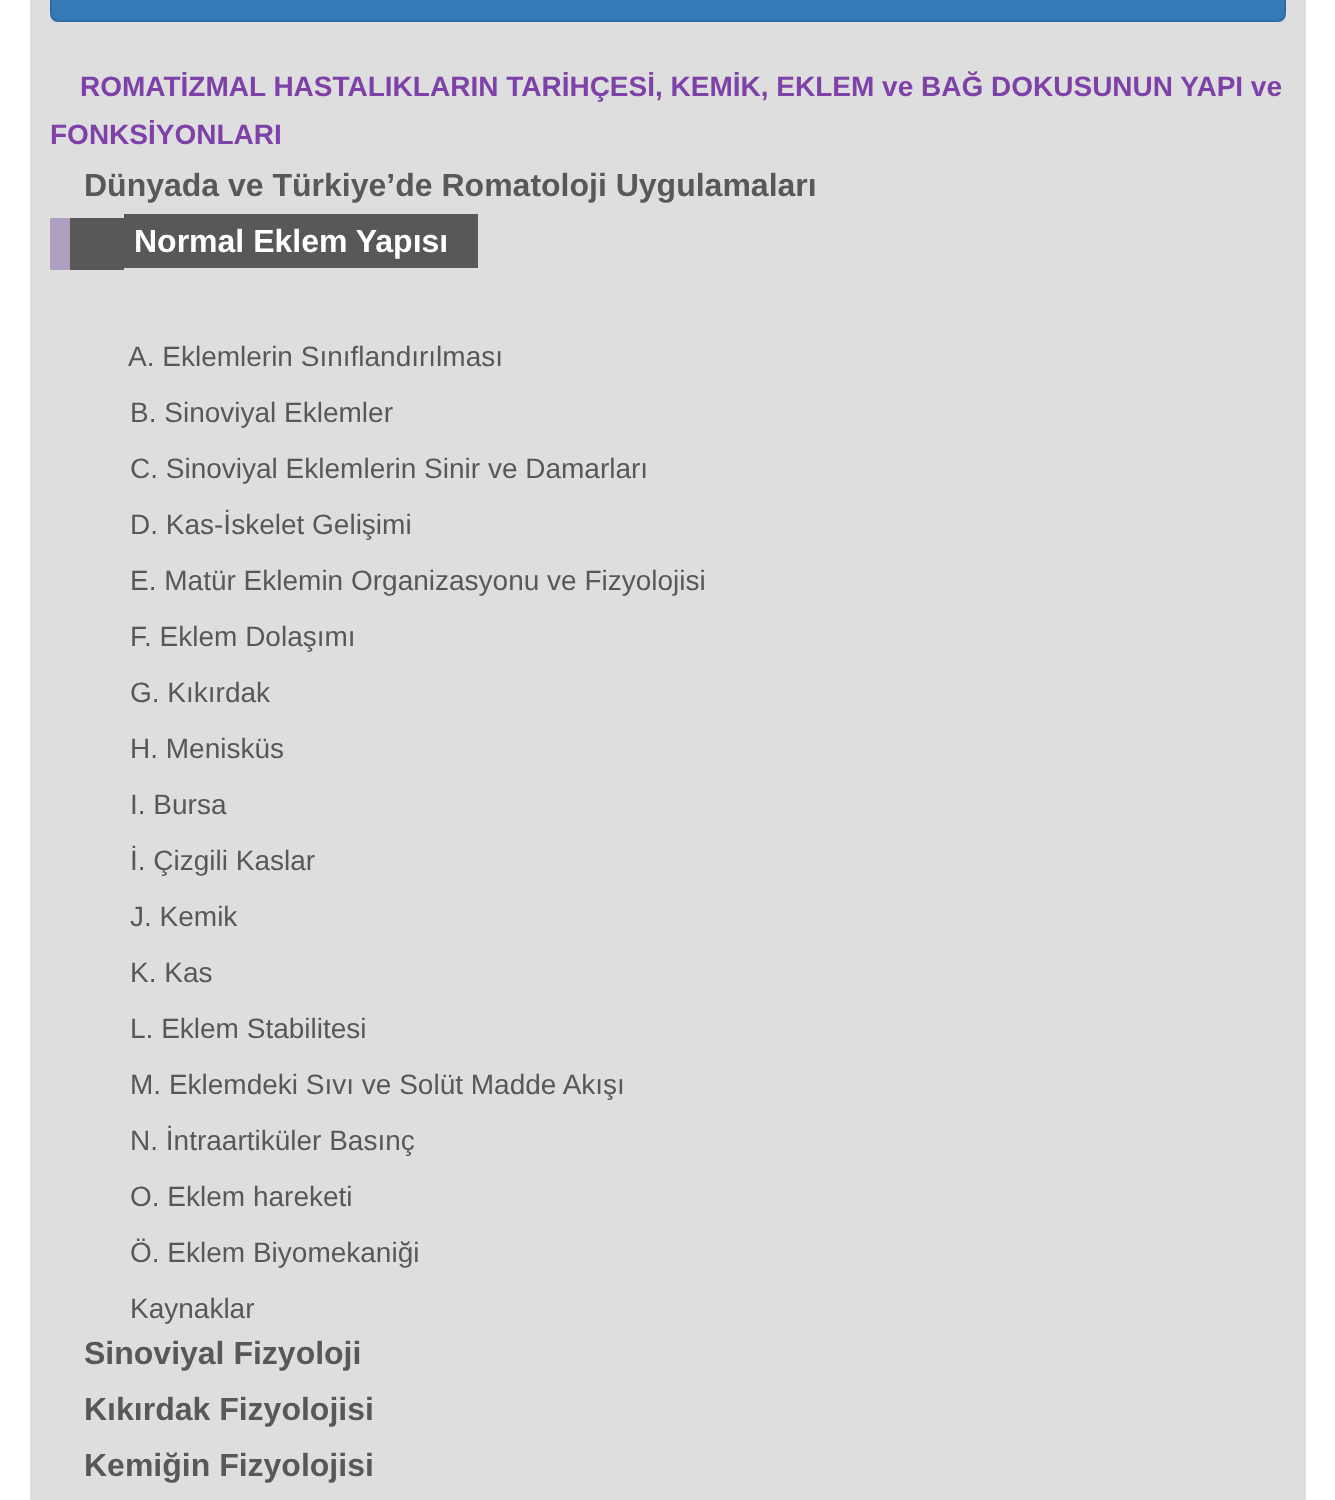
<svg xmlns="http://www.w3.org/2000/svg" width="1335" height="1500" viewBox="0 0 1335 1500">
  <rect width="100%" height="100%" fill="#ffffff"/>
  <rect x="30" y="0" width="1276" height="1500" fill="#dedede"/>
  <rect x="51" y="-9" width="1234" height="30" rx="7" fill="#337ab7" stroke="#2e6da4" stroke-width="2"/>
  <text x="80" y="96" font-family="Liberation Sans" font-size="28" font-weight="bold" fill="#7d41a8">ROMATİZMAL HASTALIKLARIN TARİHÇESİ, KEMİK, EKLEM ve BAĞ DOKUSUNUN YAPI ve</text>
  <text x="50" y="144" font-family="Liberation Sans" font-size="28" font-weight="bold" fill="#7d41a8">FONKSİYONLARI</text>
  <text x="84" y="196" font-family="Liberation Sans" font-size="32" font-weight="bold" fill="#585858">Dünyada ve Türkiye’de Romatoloji Uygulamaları</text>
  <rect x="124" y="214" width="354" height="54" fill="#585858"/>
  <text x="134" y="252" font-family="Liberation Sans" font-size="32" font-weight="bold" fill="#ffffff">Normal Eklem Yapısı</text>
  <rect x="70" y="218" width="54" height="52" fill="#585858"/>
  <rect x="50" y="218" width="20" height="52" fill="#af9fc0"/>
  <text x="128" y="366" font-family="Liberation Sans" font-size="28" fill="#585858">A. Eklemlerin Sınıflandırılması</text>
  <text x="130" y="422" font-family="Liberation Sans" font-size="28" fill="#585858">B. Sinoviyal Eklemler</text>
  <text x="130" y="478" font-family="Liberation Sans" font-size="28" fill="#585858">C. Sinoviyal Eklemlerin Sinir ve Damarları</text>
  <text x="130" y="534" font-family="Liberation Sans" font-size="28" fill="#585858">D. Kas-İskelet Gelişimi</text>
  <text x="130" y="590" font-family="Liberation Sans" font-size="28" fill="#585858">E. Matür Eklemin Organizasyonu ve Fizyolojisi</text>
  <text x="130" y="646" font-family="Liberation Sans" font-size="28" fill="#585858">F. Eklem Dolaşımı</text>
  <text x="130" y="702" font-family="Liberation Sans" font-size="28" fill="#585858">G. Kıkırdak</text>
  <text x="130" y="758" font-family="Liberation Sans" font-size="28" fill="#585858">H. Menisküs</text>
  <text x="130" y="814" font-family="Liberation Sans" font-size="28" fill="#585858">I. Bursa</text>
  <text x="130" y="870" font-family="Liberation Sans" font-size="28" fill="#585858">İ. Çizgili Kaslar</text>
  <text x="130" y="926" font-family="Liberation Sans" font-size="28" fill="#585858">J. Kemik</text>
  <text x="130" y="982" font-family="Liberation Sans" font-size="28" fill="#585858">K. Kas</text>
  <text x="130" y="1038" font-family="Liberation Sans" font-size="28" fill="#585858">L. Eklem Stabilitesi</text>
  <text x="130" y="1094" font-family="Liberation Sans" font-size="28" fill="#585858">M. Eklemdeki Sıvı ve Solüt Madde Akışı</text>
  <text x="130" y="1150" font-family="Liberation Sans" font-size="28" fill="#585858">N. İntraartiküler Basınç</text>
  <text x="130" y="1206" font-family="Liberation Sans" font-size="28" fill="#585858">O. Eklem hareketi</text>
  <text x="130" y="1262" font-family="Liberation Sans" font-size="28" fill="#585858">Ö. Eklem Biyomekaniği</text>
  <text x="130" y="1318" font-family="Liberation Sans" font-size="28" fill="#585858">Kaynaklar</text>
  <text x="84" y="1364" font-family="Liberation Sans" font-size="32" font-weight="bold" fill="#585858">Sinoviyal Fizyoloji</text>
  <text x="84" y="1420" font-family="Liberation Sans" font-size="32" font-weight="bold" fill="#585858">Kıkırdak Fizyolojisi</text>
  <text x="84" y="1476" font-family="Liberation Sans" font-size="32" font-weight="bold" fill="#585858">Kemiğin Fizyolojisi</text>
</svg>
